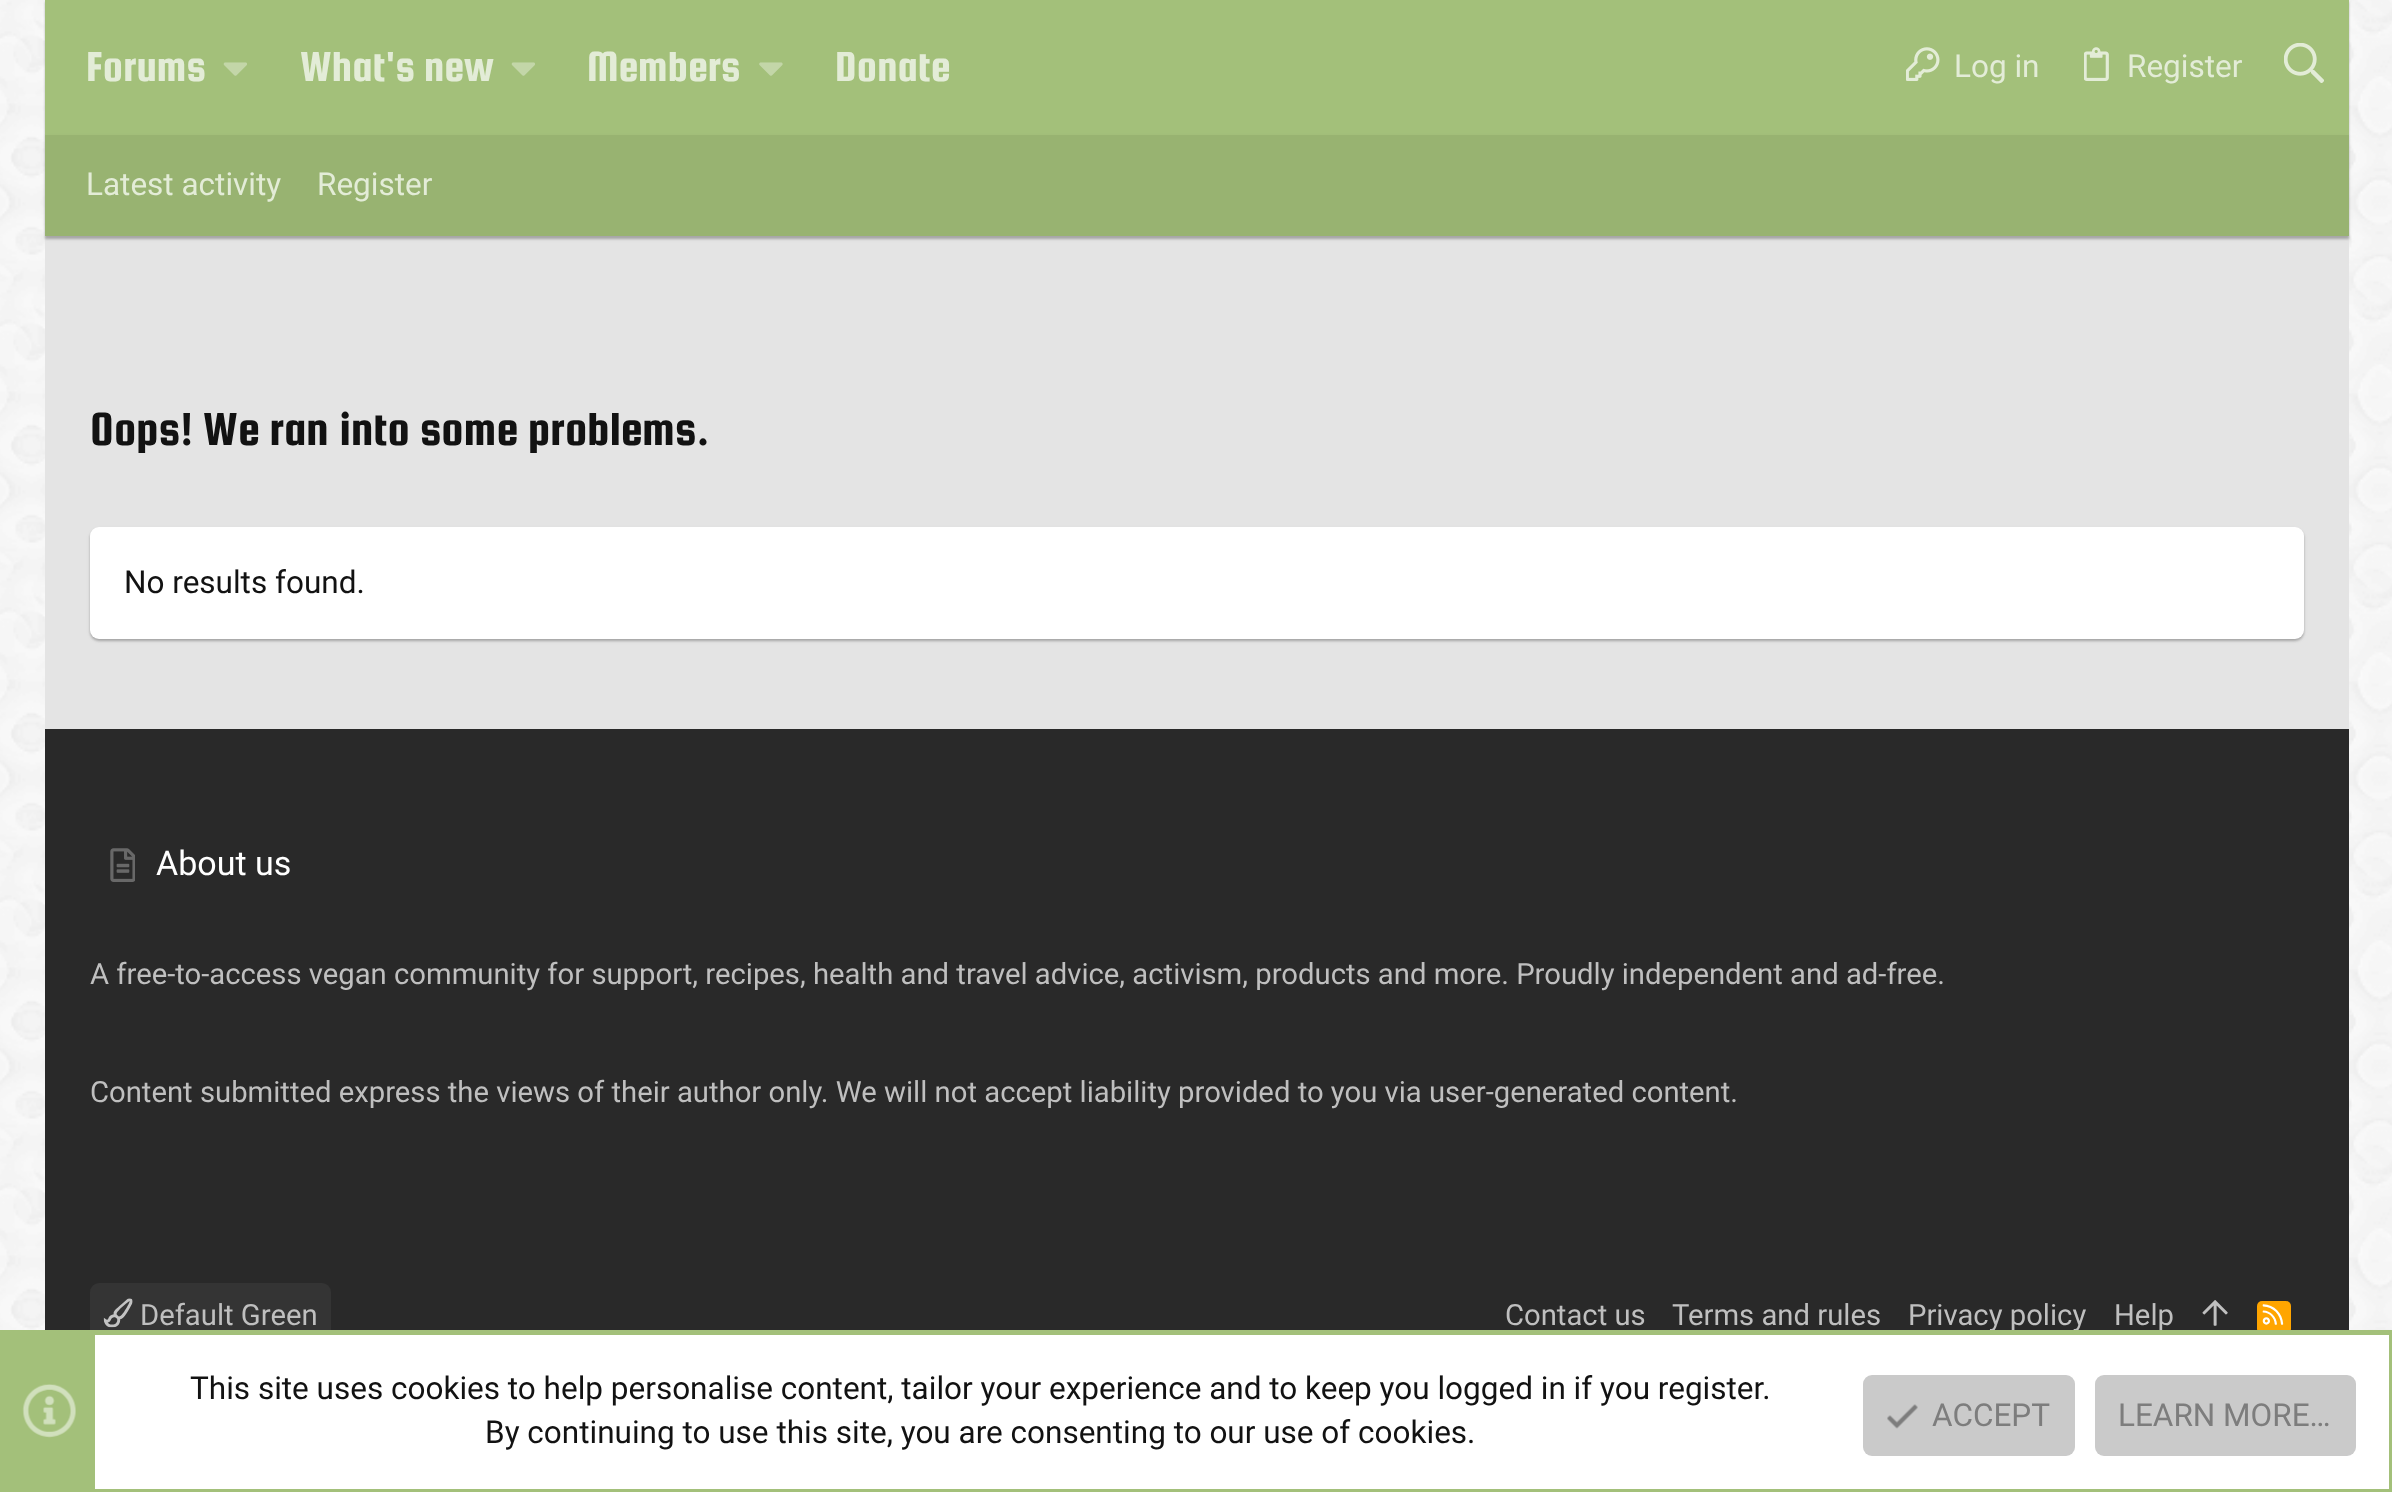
<svg xmlns="http://www.w3.org/2000/svg" width="2392" height="1492" viewBox="0 0 2392 1492">
  <defs>
    <clipPath id="clip1"><path d="M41 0H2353V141H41ZM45 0H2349V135H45Z" clip-rule="evenodd"/></clipPath>
    <filter id="blur1" x="-50%" y="-200%" width="200%" height="500%"><feGaussianBlur stdDeviation="1"/></filter>
    <filter id="blur2" x="-50%" y="-200%" width="200%" height="500%"><feGaussianBlur stdDeviation="2"/></filter>
  </defs>
  <rect width="100%" height="100%" fill="#ffffff"/>
  <image x="0" y="0" width="2392" height="1330" href="img1.png"/>
  <rect x="45" y="236" width="2304" height="493" fill="#e4e4e4"/>
  <rect x="45" y="0" width="2304" height="135" fill="#a3c07a"/>
  <g clip-path="url(#clip1)">
    <rect x="45" y="2" width="2304" height="135" fill="#000000" fill-opacity="0.1" filter="url(#blur1)"/>
    <rect x="45" y="2" width="2304" height="135" fill="#000000" fill-opacity="0.15" filter="url(#blur1)"/>
  </g>
  <text x="86" y="81" font-family="Squada One" font-size="45" fill="#e3ecd7">Forums</text>
  <image x="223" y="62" width="24" height="14" href="img2.png"/>
  <text x="300" y="81" font-family="Squada One" font-size="45" fill="#e3ecd7">What's new</text>
  <image x="511" y="62" width="24" height="14" href="img2.png"/>
  <text x="587" y="81" font-family="Squada One" font-size="45" fill="#e3ecd7">Members</text>
  <image x="759" y="62" width="24" height="14" href="img3.png"/>
  <text x="835" y="81" font-family="Squada One" font-size="45" fill="#e3ecd7">Donate</text>
  <image x="1906" y="47" width="34" height="34" href="img4.png"/>
  <text x="1954" y="77" font-family="Roboto" font-size="31.5" fill="#e3ecd7">Log in</text>
  <image x="2084" y="47" width="25" height="34" href="img5.png"/>
  <text x="2127" y="77" font-family="Roboto" font-size="31.5" fill="#e3ecd7">Register</text>
  <image x="2284" y="43" width="40" height="40" href="img6.png"/>
  <rect x="45" y="137" width="2304" height="102" fill="#000000" fill-opacity="0.05" filter="url(#blur2)"/>
  <rect x="45" y="137" width="2304" height="102" fill="#000000" fill-opacity="0.1" filter="url(#blur1)"/>
  <rect x="45" y="137" width="2304" height="102" fill="#000000" fill-opacity="0.15" filter="url(#blur1)"/>
  <rect x="45" y="135" width="2304" height="101" fill="#98b371"/>
  <text x="86" y="195" font-family="Roboto" font-size="31.5" fill="#e3ecd7">Latest activity</text>
  <text x="317" y="195" font-family="Roboto" font-size="31.5" fill="#e3ecd7">Register</text>
  <text x="90" y="445" font-family="Squada One" font-size="49.5" fill="#121212">Oops! We ran into some problems.</text>
  <rect x="90" y="529" width="2214" height="112" rx="9" fill="#000000" fill-opacity="0.05" filter="url(#blur2)"/>
  <rect x="90" y="529" width="2214" height="112" rx="9" fill="#000000" fill-opacity="0.1" filter="url(#blur1)"/>
  <rect x="90" y="529" width="2214" height="112" rx="9" fill="#000000" fill-opacity="0.15" filter="url(#blur1)"/>
  <rect x="90" y="527" width="2214" height="112" rx="9" fill="#ffffff"/>
  <text x="124" y="593" font-family="Roboto" font-size="31.5" fill="#121212">No results found.</text>
  <rect x="45" y="729" width="2304" height="601" fill="#292929"/>
  <image x="110" y="848" width="25" height="34" href="img7.png"/>
  <text x="156" y="875" font-family="Roboto" font-size="34" fill="#ffffff">About us</text>
  <text x="90" y="984" font-family="Roboto" font-size="29.25" fill="#bfbfbf">A free-to-access vegan community for support, recipes, health and travel advice, activism, products and more. Proudly independent and ad-free.</text>
  <text x="90" y="1102" font-family="Roboto" font-size="29.25" fill="#bfbfbf">Content submitted express the views of their author only. We will not accept liability provided to you via user-generated content.</text>
  <rect x="90" y="1283" width="241" height="67" rx="9" fill="#343434"/>
  <image x="103" y="1298" width="30" height="30" href="img8.png"/>
  <text x="140" y="1325" font-family="Roboto" font-size="29.25" fill="#bfbfbf">Default Green</text>
  <text x="1505" y="1325" font-family="Roboto" font-size="29.25" fill="#bfbfbf">Contact us</text>
  <text x="1672" y="1325" font-family="Roboto" font-size="29.25" fill="#bfbfbf">Terms and rules</text>
  <text x="1908" y="1325" font-family="Roboto" font-size="29.25" fill="#bfbfbf">Privacy policy</text>
  <text x="2114" y="1325" font-family="Roboto" font-size="29.25" fill="#bfbfbf">Help</text>
  <image x="2202" y="1300" width="26" height="26" href="img9.png"/>
  <rect x="2257" y="1301" width="34" height="33" rx="5" fill="#ffa500"/>
  <image x="2262" y="1304" width="22" height="21" href="img10.png"/>
  <rect x="95" y="1335" width="236" height="15" fill="#ffffff"/>
  <rect x="2.5" y="1332.5" width="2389" height="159" fill="none" stroke="#a3c07a" stroke-width="5"/>
  <rect x="5" y="1335" width="90" height="154" fill="#a3c07a"/>
  <image x="22" y="1384" width="54" height="54" href="img11.png"/>
  <text x="190" y="1399" font-family="Roboto" font-size="31.5" fill="#121212">This site uses cookies to help personalise content, tailor your experience and to keep you logged in if you register.</text>
  <text x="485" y="1443" font-family="Roboto" font-size="31.5" fill="#121212">By continuing to use this site, you are consenting to our use of cookies.</text>
  <rect x="1863" y="1375" width="212" height="81" rx="9" fill="#cacaca"/>
  <image x="1887" y="1404" width="31" height="25" href="img12.png"/>
  <text x="1932" y="1426" font-family="Roboto" font-size="31.5" fill="#7d7d7d">ACCEPT</text>
  <rect x="2095" y="1375" width="261" height="81" rx="9" fill="#cacaca"/>
  <text x="2118" y="1426" font-family="Roboto" font-size="31.5" fill="#7d7d7d">LEARN MORE…</text>
</svg>
